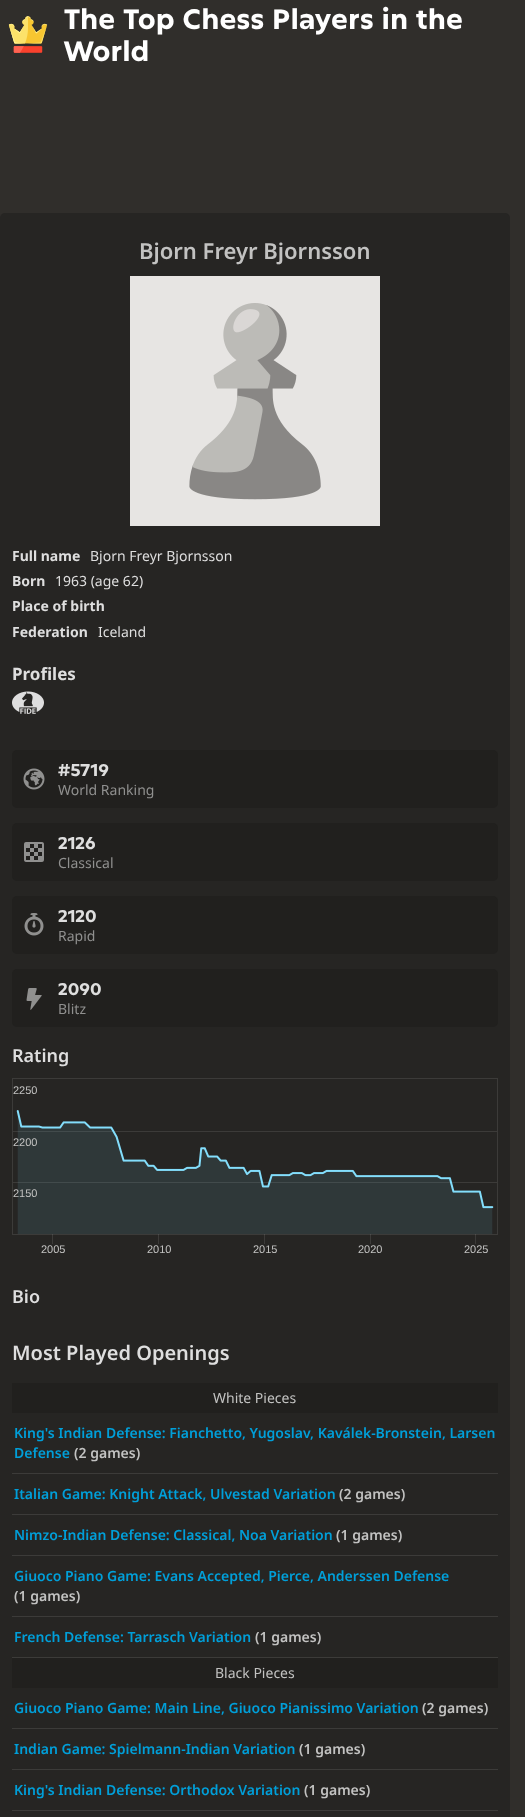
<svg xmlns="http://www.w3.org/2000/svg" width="525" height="1817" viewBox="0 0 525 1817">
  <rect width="100%" height="100%" fill="#302e2b"/>
  <image x="8" y="16" width="40" height="37" href="img1.png"/>
  <text x="64" y="29" font-family="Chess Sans" font-size="28" font-weight="bold" fill="#ffffff">The Top Chess Players in the</text>
  <text x="64" y="61" font-family="Chess Sans" font-size="28" font-weight="bold" fill="#ffffff">World</text>
  <rect x="0" y="213" width="510" height="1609" rx="5" fill="#262523"/>
  <text x="139" y="259" font-family="Noto Sans" font-size="22" font-weight="600" fill="#c2c2c1">Bjorn Freyr Bjornsson</text>
  <image x="130" y="276" width="250" height="250" href="img2.png"/>
  <text x="12" y="561" font-family="Noto Sans" font-size="14" font-weight="bold" fill="#dedede">Full name</text>
  <text x="90" y="561" font-family="Noto Sans" font-size="14" fill="#dedede">Bjorn Freyr Bjornsson</text>
  <text x="12" y="586" font-family="Noto Sans" font-size="14" font-weight="bold" fill="#dedede">Born</text>
  <text x="55" y="586" font-family="Noto Sans" font-size="14" fill="#dedede">1963 (age 62)</text>
  <text x="12" y="611" font-family="Noto Sans" font-size="14" font-weight="bold" fill="#dedede">Place of birth</text>
  <text x="12" y="637" font-family="Noto Sans" font-size="14" font-weight="bold" fill="#dedede">Federation</text>
  <text x="98" y="637" font-family="Noto Sans" font-size="14" fill="#dedede">Iceland</text>
  <text x="12" y="680" font-family="Noto Sans" font-size="17" font-weight="bold" fill="#dedede">Profiles</text>
  <image x="12" y="691" width="32" height="23" href="img3.png"/>
  <rect x="12" y="750" width="486" height="58" rx="5" fill="#21201e"/>
  <image x="23" y="768" width="22" height="22" href="img4.png"/>
  <text x="58" y="776" font-family="Chess Sans" font-size="17" font-weight="bold" fill="#dedede">#5719</text>
  <text x="58" y="795" font-family="Noto Sans" font-size="14" fill="#90908f">World Ranking</text>
  <rect x="12" y="823" width="486" height="58" rx="5" fill="#21201e"/>
  <image x="24" y="842" width="20" height="20" href="img5.png"/>
  <text x="58" y="849" font-family="Chess Sans" font-size="17" font-weight="bold" fill="#dedede">2126</text>
  <text x="58" y="868" font-family="Noto Sans" font-size="14" fill="#90908f">Classical</text>
  <rect x="12" y="896" width="486" height="58" rx="5" fill="#21201e"/>
  <image x="24" y="913" width="20" height="23" href="img6.png"/>
  <text x="58" y="922" font-family="Chess Sans" font-size="17" font-weight="bold" fill="#dedede">2120</text>
  <text x="58" y="941" font-family="Noto Sans" font-size="14" fill="#90908f">Rapid</text>
  <rect x="12" y="969" width="486" height="58" rx="5" fill="#21201e"/>
  <image x="26" y="988" width="16" height="22" href="img7.png"/>
  <text x="58" y="995" font-family="Chess Sans" font-size="17" font-weight="bold" fill="#dedede">2090</text>
  <text x="58" y="1014" font-family="Noto Sans" font-size="14" fill="#90908f">Blitz</text>
  <text x="12" y="1062" font-family="Noto Sans" font-size="18" font-weight="600" fill="#dedede">Rating</text>
  <image x="12" y="1078" width="486" height="166" href="img8.png"/>
  <text x="13" y="1094" font-family="Liberation Sans" font-size="11" fill="#c2c2c1">2250</text>
  <text x="13" y="1146" font-family="Liberation Sans" font-size="11" fill="#c2c2c1">2200</text>
  <text x="13" y="1197" font-family="Liberation Sans" font-size="11" fill="#c2c2c1">2150</text>
  <text x="41" y="1253" font-family="Liberation Sans" font-size="11" fill="#c2c2c1">2005</text>
  <text x="147" y="1253" font-family="Liberation Sans" font-size="11" fill="#c2c2c1">2010</text>
  <text x="253" y="1253" font-family="Liberation Sans" font-size="11" fill="#c2c2c1">2015</text>
  <text x="358" y="1253" font-family="Liberation Sans" font-size="11" fill="#c2c2c1">2020</text>
  <text x="464" y="1253" font-family="Liberation Sans" font-size="11" fill="#c2c2c1">2025</text>
  <text x="12" y="1303" font-family="Noto Sans" font-size="18" font-weight="600" fill="#dedede">Bio</text>
  <text x="12" y="1360" font-family="Noto Sans" font-size="20" font-weight="600" fill="#dedede">Most Played Openings</text>
  <rect x="12" y="1383" width="486" height="30" fill="#21201e"/>
  <text x="213" y="1403" font-family="Noto Sans" font-size="14" fill="#c2c2c1">White Pieces</text>
  <rect x="12" y="1473" width="486" height="1" fill="#3c3b39"/>
  <text x="14" y="1438" font-family="Noto Sans" font-size="14" font-weight="600" fill="#009fd9">King's Indian Defense: Fianchetto, Yugoslav, Kaválek-Bronstein, Larsen</text>
  <text x="14" y="1458" font-family="Noto Sans" font-size="14" font-weight="600" fill="#009fd9">Defense</text>
  <text x="74" y="1458" font-family="Noto Sans" font-size="14" font-weight="600" fill="#c2c2c1">(2 games)</text>
  <rect x="12" y="1514" width="486" height="1" fill="#3c3b39"/>
  <text x="14" y="1499" font-family="Noto Sans" font-size="14" font-weight="600" fill="#009fd9">Italian Game: Knight Attack, Ulvestad Variation</text>
  <text x="339" y="1499" font-family="Noto Sans" font-size="14" font-weight="600" fill="#c2c2c1">(2 games)</text>
  <rect x="12" y="1555" width="486" height="1" fill="#3c3b39"/>
  <text x="14" y="1540" font-family="Noto Sans" font-size="14" font-weight="600" fill="#009fd9">Nimzo-Indian Defense: Classical, Noa Variation</text>
  <text x="336" y="1540" font-family="Noto Sans" font-size="14" font-weight="600" fill="#c2c2c1">(1 games)</text>
  <rect x="12" y="1616" width="486" height="1" fill="#3c3b39"/>
  <text x="14" y="1581" font-family="Noto Sans" font-size="14" font-weight="600" fill="#009fd9">Giuoco Piano Game: Evans Accepted, Pierce, Anderssen Defense</text>
  <text x="14" y="1601" font-family="Noto Sans" font-size="14" font-weight="600" fill="#c2c2c1">(1 games)</text>
  <rect x="12" y="1657" width="486" height="1" fill="#3c3b39"/>
  <text x="14" y="1642" font-family="Noto Sans" font-size="14" font-weight="600" fill="#009fd9">French Defense: Tarrasch Variation</text>
  <text x="255" y="1642" font-family="Noto Sans" font-size="14" font-weight="600" fill="#c2c2c1">(1 games)</text>
  <rect x="12" y="1658" width="486" height="30" fill="#21201e"/>
  <text x="215" y="1678" font-family="Noto Sans" font-size="14" fill="#c2c2c1">Black Pieces</text>
  <rect x="12" y="1728" width="486" height="1" fill="#3c3b39"/>
  <text x="14" y="1713" font-family="Noto Sans" font-size="14" font-weight="600" fill="#009fd9">Giuoco Piano Game: Main Line, Giuoco Pianissimo Variation</text>
  <text x="422" y="1713" font-family="Noto Sans" font-size="14" font-weight="600" fill="#c2c2c1">(2 games)</text>
  <rect x="12" y="1769" width="486" height="1" fill="#3c3b39"/>
  <text x="14" y="1754" font-family="Noto Sans" font-size="14" font-weight="600" fill="#009fd9">Indian Game: Spielmann-Indian Variation</text>
  <text x="299" y="1754" font-family="Noto Sans" font-size="14" font-weight="600" fill="#c2c2c1">(1 games)</text>
  <rect x="12" y="1810" width="486" height="1" fill="#3c3b39"/>
  <text x="14" y="1795" font-family="Noto Sans" font-size="14" font-weight="600" fill="#009fd9">King's Indian Defense: Orthodox Variation</text>
  <text x="304" y="1795" font-family="Noto Sans" font-size="14" font-weight="600" fill="#c2c2c1">(1 games)</text>
</svg>
